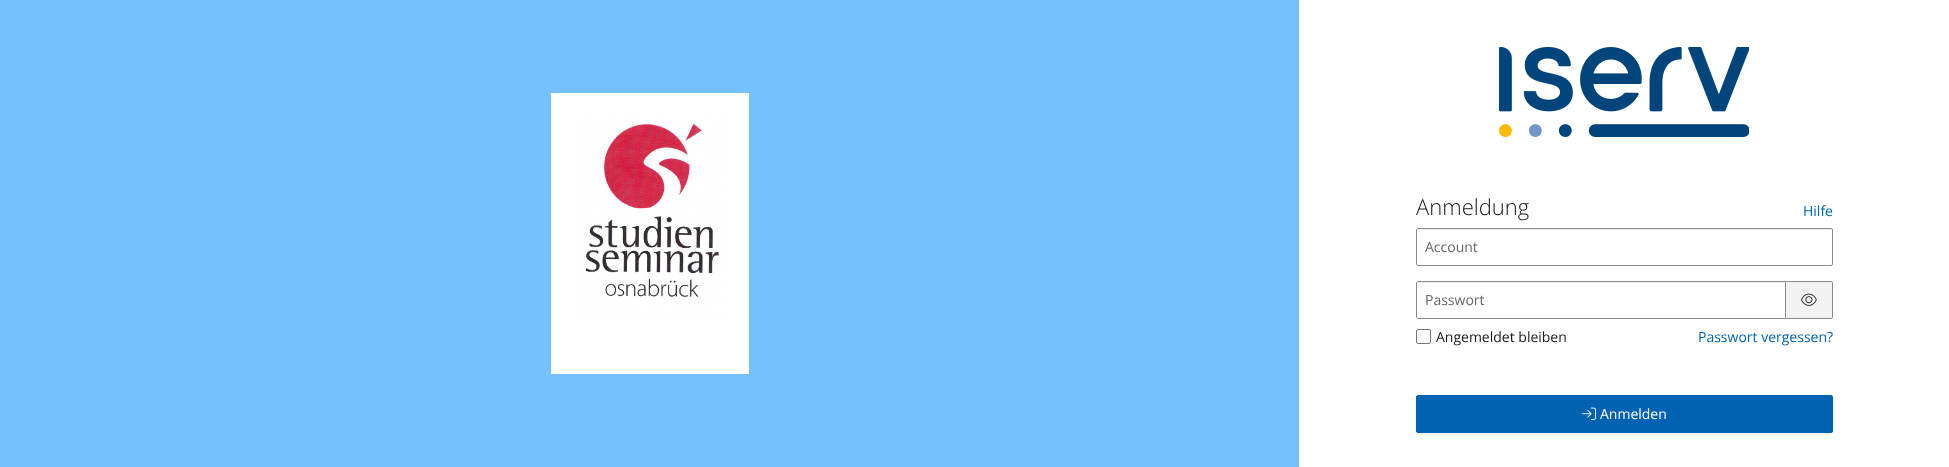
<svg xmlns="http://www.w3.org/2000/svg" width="1949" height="467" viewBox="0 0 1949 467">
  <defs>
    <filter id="blur1" x="-50%" y="-200%" width="200%" height="500%"><feGaussianBlur stdDeviation="1.5"/></filter>
  </defs>
  <rect width="100%" height="100%" fill="#ffffff"/>
  <rect x="0" y="0" width="1299" height="467" fill="#75c1ff"/>
  <image x="551" y="93" width="198" height="281" href="img1.png"/>
  <image x="1499" y="47" width="250" height="90" href="img2.png"/>
  <text x="1416" y="215" font-family="Open Sans" font-size="22" font-weight="300" fill="#1a1a1a">Anmeldung</text>
  <text x="1803" y="216" font-family="Open Sans" font-size="14" fill="#0062b3">Hilfe</text>
  <path d="M1418 230H1831H1832V231V229H1624H1418L1417 230V231C1417 230 1417 230 1418 230Z" fill="#ececec"/>
  <rect x="1416.5" y="228.5" width="416" height="37" rx="1.5" fill="none" stroke="#8c8c8c"/>
  <text x="1425" y="252" font-family="Open Sans" font-size="14" fill="#666666">Account</text>
  <path d="M1418 283H1785V282H1418C1417 282 1417 283 1417 284Z" fill="#ececec"/>
  <path d="M1418 281.5H1785.5V318.5H1418C1417 318.5 1416.5 318 1416.5 317V283C1416.5 282 1417 281.5 1418 281.5Z" fill="none" stroke="#8c8c8c"/>
  <text x="1425" y="305" font-family="Open Sans" font-size="14" fill="#666666">Passwort</text>
  <path d="M1786 281H1831C1832 281 1833 282 1833 283V317C1833 318 1832 319 1831 319H1786Z" fill="#f2f2f2"/>
  <rect x="1786" y="281" width="46" height="1" fill="#8c8c8c"/>
  <rect x="1832" y="282" width="1" height="36" fill="#8c8c8c"/>
  <rect x="1786" y="318" width="46" height="1" fill="#8c8c8c"/>
  <image x="1801" y="293" width="16" height="13" href="img3.png"/>
  <rect x="1416.5" y="329.5" width="14" height="14" rx="1.5" fill="none" stroke="#767676"/>
  <text x="1436" y="342" font-family="Open Sans" font-size="14" fill="#1a1a1a">Angemeldet bleiben</text>
  <text x="1698" y="342" font-family="Open Sans" font-size="14" fill="#0062b3">Passwort vergessen?</text>
  <rect x="1416" y="396" width="417" height="38" rx="2" fill="#000000" fill-opacity="0.08" filter="url(#blur1)"/>
  <rect x="1416.5" y="395.5" width="416" height="37" rx="1.5" fill="#0062b3" stroke="#0062b3"/>
  <image x="1582" y="407" width="14" height="13" href="img4.png"/>
  <text x="1600" y="419" font-family="Open Sans" font-size="14" fill="#ffffff">Anmelden</text>
</svg>
